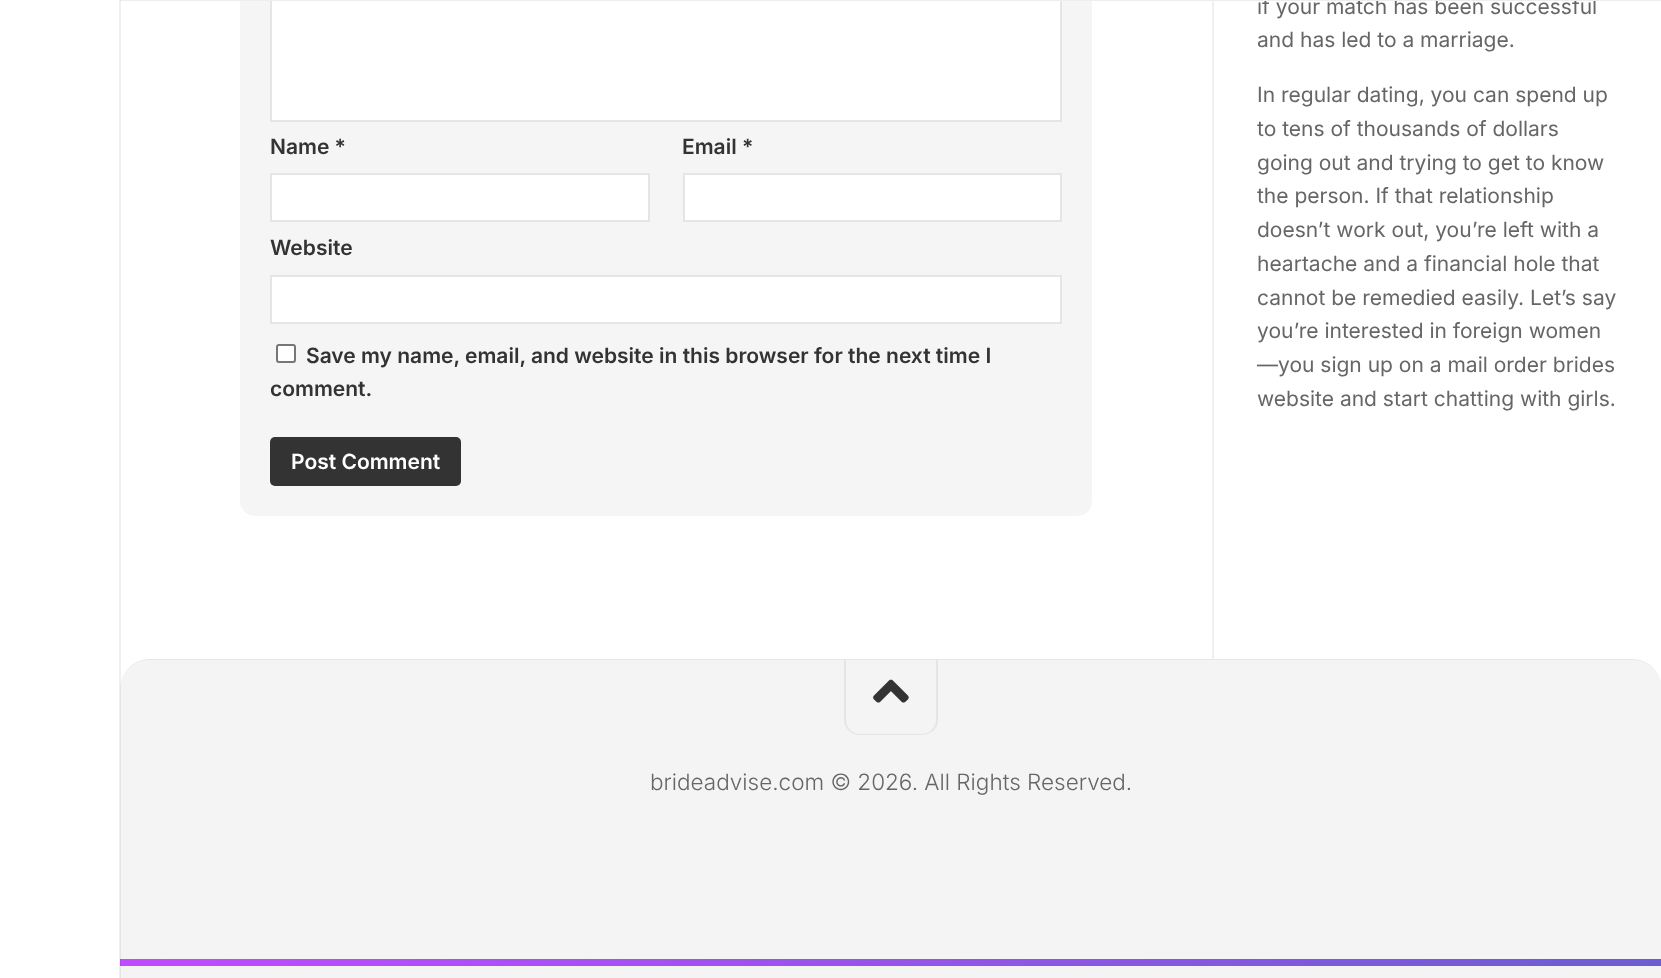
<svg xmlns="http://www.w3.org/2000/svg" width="1661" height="978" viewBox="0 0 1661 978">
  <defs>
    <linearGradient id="g1" gradientUnits="userSpaceOnUse" x1="120" y1="962" x2="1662" y2="962"><stop offset="0" stop-color="#c14bff"/><stop offset="1" stop-color="#6c5dd3"/></linearGradient>
  </defs>
  <rect width="100%" height="100%" fill="#ffffff"/>
  <rect x="240" y="-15" width="852" height="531" rx="15" fill="#f5f5f5"/>
  <rect x="272" y="1" width="788" height="119" fill="#ffffff"/>
  <rect x="271" y="-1" width="790" height="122" fill="none" stroke="#e5e5e5" stroke-width="2"/>
  <rect x="1212" y="0" width="2" height="659" fill="#f0f0f0"/>
  <text x="1257" y="14" font-family="Inter" font-size="21" fill="#666666">if your match has been successful</text>
  <rect x="120" y="0" width="1541" height="1" fill="#eeeeee"/>
  <path d="M150 659H1632C1648.5 659 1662 672.5 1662 689V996H120V689C120 672.5 133.5 659 150 659Z" fill="#f4f4f4"/>
  <path d="M150 660H1632C1649 660 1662 673 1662 690C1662 673 1649 659 1632 659H150C133 659 120 673 120 690C120 673 133 660 150 660Z" fill="#000000" fill-opacity="0.05"/>
  <rect x="120" y="959" width="1541" height="7" fill="url(#g1)"/>
  <rect x="119" y="0" width="2" height="978" fill="#000000" fill-opacity="0.06"/>
  <text x="270" y="154" font-family="Inter" font-size="21" font-weight="600" fill="#333333">Name *</text>
  <rect x="271" y="174" width="378" height="47" fill="#ffffff" stroke="#e5e5e5" stroke-width="2"/>
  <text x="682" y="154" font-family="Inter" font-size="21" font-weight="600" fill="#333333">Email *</text>
  <rect x="684" y="174" width="377" height="47" fill="#ffffff" stroke="#e5e5e5" stroke-width="2"/>
  <text x="270" y="255" font-family="Inter" font-size="21" font-weight="600" fill="#333333">Website</text>
  <rect x="271" y="276" width="790" height="47" fill="#ffffff" stroke="#e5e5e5" stroke-width="2"/>
  <rect x="277" y="345" width="18" height="17" rx="2" fill="#ffffff" stroke="#767676" stroke-width="2"/>
  <text x="306" y="363" font-family="Inter" font-size="21" font-weight="600" fill="#333333">Save my name, email, and website in this browser for the next time I</text>
  <text x="270" y="396" font-family="Inter" font-size="21" font-weight="600" fill="#333333">comment.</text>
  <rect x="270" y="437" width="191" height="49" rx="5" fill="#333333"/>
  <text x="291" y="469" font-family="Inter" font-size="21" font-weight="600" fill="#ffffff">Post Comment</text>
  <text x="1257" y="47" font-family="Inter" font-size="21" fill="#666666">and has led to a marriage.</text>
  <text x="1257" y="102" font-family="Inter" font-size="21" fill="#666666">In regular dating, you can spend up</text>
  <text x="1257" y="136" font-family="Inter" font-size="21" fill="#666666">to tens of thousands of dollars</text>
  <text x="1257" y="170" font-family="Inter" font-size="21" fill="#666666">going out and trying to get to know</text>
  <text x="1257" y="203" font-family="Inter" font-size="21" fill="#666666">the person. If that relationship</text>
  <text x="1257" y="237" font-family="Inter" font-size="21" fill="#666666">doesn’t work out, you’re left with a</text>
  <text x="1257" y="271" font-family="Inter" font-size="21" fill="#666666">heartache and a financial hole that</text>
  <text x="1257" y="305" font-family="Inter" font-size="21" fill="#666666">cannot be remedied easily. Let’s say</text>
  <text x="1257" y="338" font-family="Inter" font-size="21" fill="#666666">you’re interested in foreign women</text>
  <text x="1257" y="372" font-family="Inter" font-size="21" fill="#666666">—you sign up on a mail order brides</text>
  <text x="1257" y="406" font-family="Inter" font-size="21" fill="#666666">website and start chatting with girls.</text>
  <path d="M938 659V720C938 728 931 735 922 735H860C851 735 844 728 844 720V659H846V720C846 727 852 734 860 734H922C930 734 936 727 936 720V659Z" fill="#e5e5e5"/>
  <image x="873" y="679" width="36" height="24" href="img1.png"/>
  <text x="650" y="790" font-family="Inter" font-size="22.5" font-weight="300" fill="#666666">brideadvise.com © 2026. All Rights Reserved.</text>
</svg>
